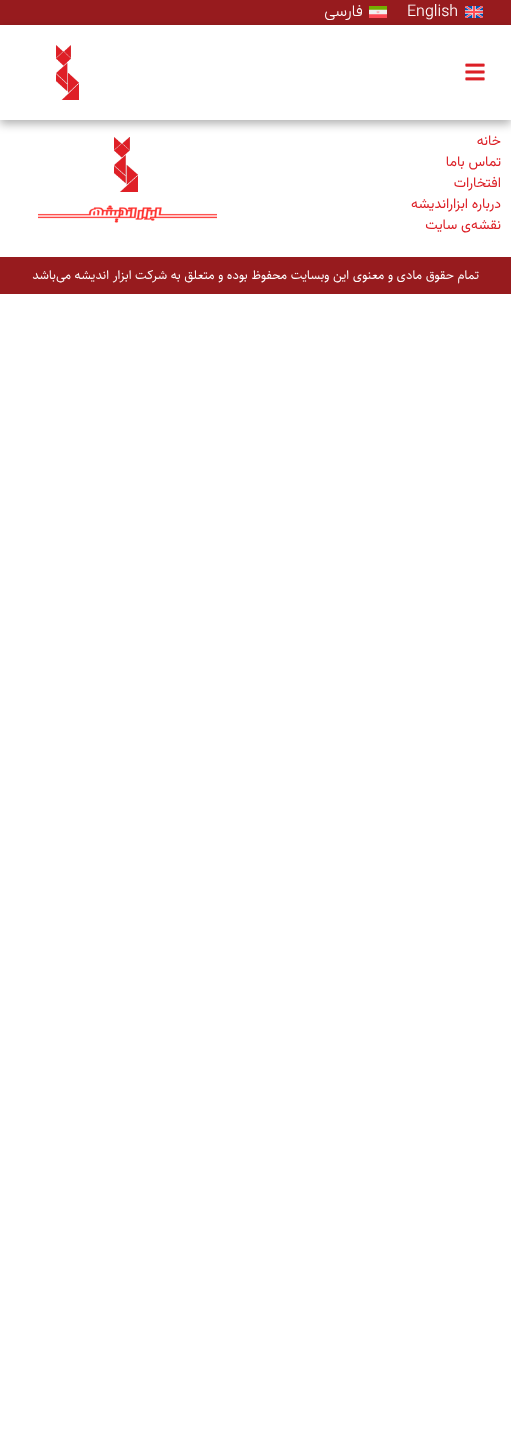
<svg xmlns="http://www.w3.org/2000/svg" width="511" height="1440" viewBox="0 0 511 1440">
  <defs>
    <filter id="blur1" x="-50%" y="-200%" width="200%" height="500%"><feGaussianBlur stdDeviation="5"/></filter>
  </defs>
  <rect width="100%" height="100%" fill="#ffffff"/>
  <rect x="0" y="0" width="511" height="25" fill="#971b1e"/>
  <image x="465" y="6" width="18" height="12" href="img1.png"/>
  <text x="407" y="16" font-family="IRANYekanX" font-size="16" font-weight="300" fill="#ffffff">English</text>
  <image x="369" y="6" width="18" height="12" href="img2.png"/>
  <text x="363" y="16" font-family="IRANYekanX" font-size="16" font-weight="300" direction="rtl" fill="#ffffff">فارسی</text>
  <image x="114" y="137" width="24" height="55" href="img5.png"/>
  <rect x="0" y="29" width="511" height="95" fill="#000000" fill-opacity="0.3" filter="url(#blur1)"/>
  <rect x="0" y="25" width="511" height="95" fill="#ffffff"/>
  <image x="465" y="63" width="20" height="18" href="img3.png"/>
  <image x="56" y="45" width="23" height="55" href="img4.png"/>
  <text x="501" y="145" font-family="Vazirmatn" font-size="14" direction="rtl" fill="#dc1f26">خانه</text>
  <text x="501" y="166" font-family="Vazirmatn" font-size="14" direction="rtl" fill="#dc1f26">تماس با‌ما</text>
  <text x="501" y="187" font-family="Vazirmatn" font-size="14" direction="rtl" fill="#dc1f26">افتخارات</text>
  <text x="501" y="208" font-family="Vazirmatn" font-size="14" direction="rtl" fill="#dc1f26">درباره ابزاراندیشه</text>
  <text x="501" y="229" font-family="Vazirmatn" font-size="14" direction="rtl" fill="#dc1f26">نقشه‌ی سایت</text>
  <image x="38" y="205" width="179" height="18" href="img6.png"/>
  <rect x="0" y="257" width="511" height="37" fill="#971b1e"/>
  <text x="479" y="279" font-family="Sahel" font-size="13" direction="rtl" fill="#ffffff">تمام حقوق مادی و معنوی این وبسایت محفوظ بوده و متعلق به شرکت ابزار اندیشه می‌باشد</text>
</svg>
